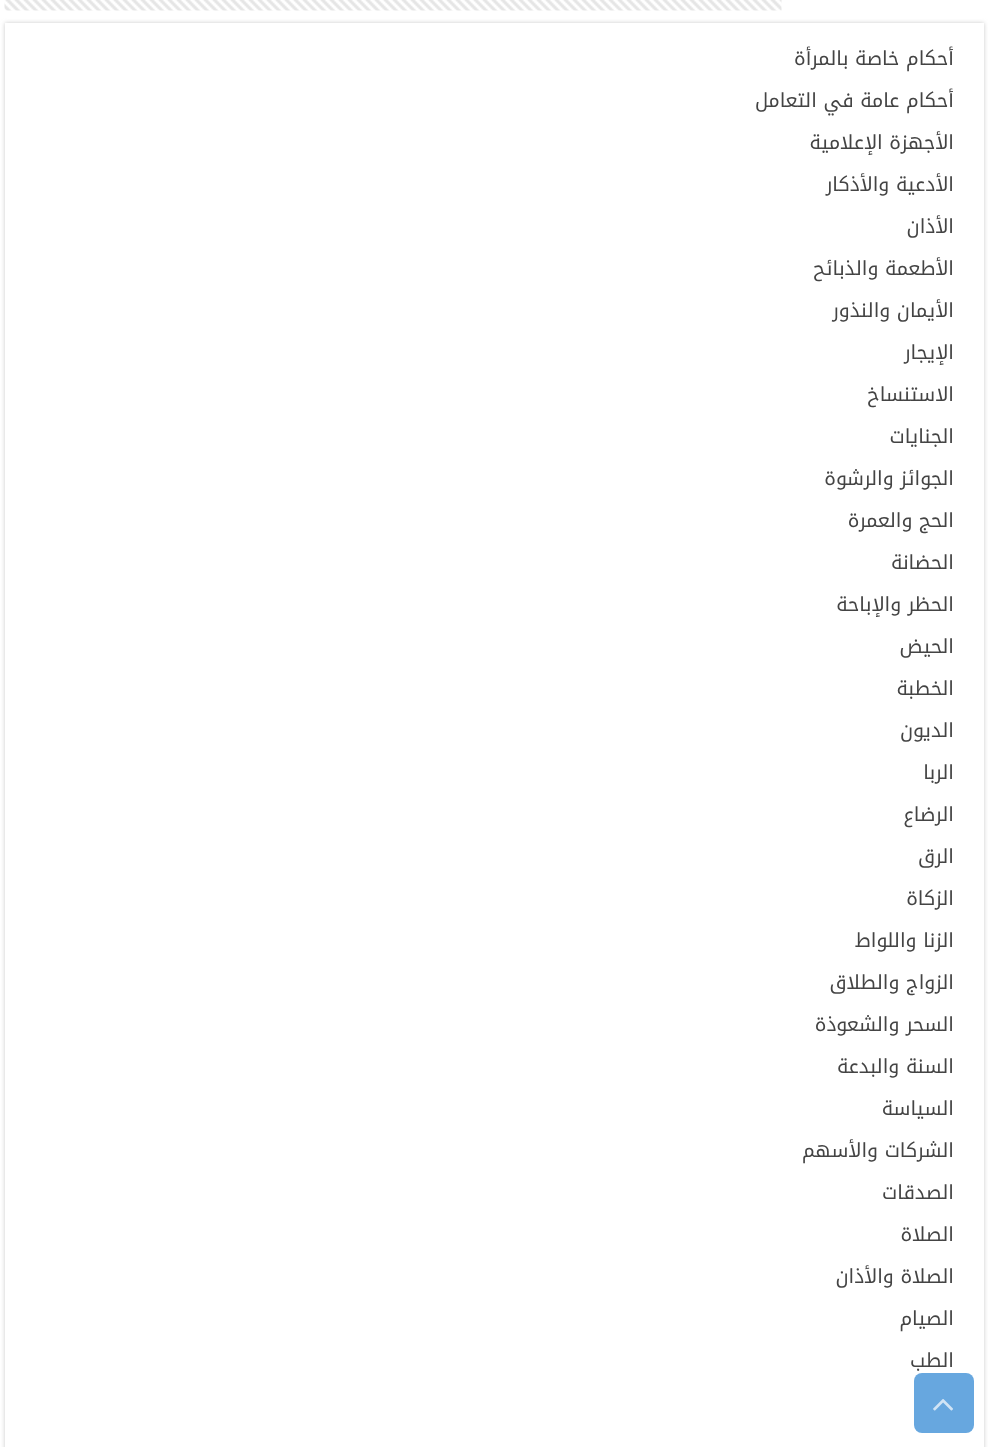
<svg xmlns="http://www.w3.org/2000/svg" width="988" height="1447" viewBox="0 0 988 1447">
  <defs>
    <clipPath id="clip1"><path d="M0 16H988V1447H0ZM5 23H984V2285H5Z" clip-rule="evenodd"/></clipPath>
    <filter id="blur1" x="-50%" y="-200%" width="200%" height="500%"><feGaussianBlur stdDeviation="2"/></filter>
  </defs>
  <rect width="100%" height="100%" fill="#ffffff"/>
  <image x="4" y="0" width="778" height="11" href="img1.png"/>
  <g clip-path="url(#clip1)">
    <rect x="5" y="23" width="979" height="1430" fill="#cacaca" filter="url(#blur1)"/>
  </g>
  <text x="954" y="65" font-family="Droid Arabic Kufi" font-size="19.5" direction="rtl" fill="#444444">أحكام خاصة بالمرأة</text>
  <text x="954" y="107" font-family="Droid Arabic Kufi" font-size="19.5" direction="rtl" fill="#444444">أحكام عامة في التعامل</text>
  <text x="954" y="149" font-family="Droid Arabic Kufi" font-size="19.5" direction="rtl" fill="#444444">الأجهزة الإعلامية</text>
  <text x="954" y="191" font-family="Droid Arabic Kufi" font-size="19.5" direction="rtl" fill="#444444">الأدعية والأذكار</text>
  <text x="954" y="233" font-family="Droid Arabic Kufi" font-size="19.5" direction="rtl" fill="#444444">الأذان</text>
  <text x="954" y="275" font-family="Droid Arabic Kufi" font-size="19.5" direction="rtl" fill="#444444">الأطعمة والذبائح</text>
  <text x="954" y="317" font-family="Droid Arabic Kufi" font-size="19.5" direction="rtl" fill="#444444">الأيمان والنذور</text>
  <text x="954" y="359" font-family="Droid Arabic Kufi" font-size="19.5" direction="rtl" fill="#444444">الإيجار</text>
  <text x="954" y="401" font-family="Droid Arabic Kufi" font-size="19.5" direction="rtl" fill="#444444">الاستنساخ</text>
  <text x="954" y="443" font-family="Droid Arabic Kufi" font-size="19.5" direction="rtl" fill="#444444">الجنايات</text>
  <text x="954" y="485" font-family="Droid Arabic Kufi" font-size="19.5" direction="rtl" fill="#444444">الجوائز والرشوة</text>
  <text x="954" y="527" font-family="Droid Arabic Kufi" font-size="19.5" direction="rtl" fill="#444444">الحج والعمرة</text>
  <text x="954" y="569" font-family="Droid Arabic Kufi" font-size="19.5" direction="rtl" fill="#444444">الحضانة</text>
  <text x="954" y="611" font-family="Droid Arabic Kufi" font-size="19.5" direction="rtl" fill="#444444">الحظر والإباحة</text>
  <text x="954" y="653" font-family="Droid Arabic Kufi" font-size="19.5" direction="rtl" fill="#444444">الحيض</text>
  <text x="954" y="695" font-family="Droid Arabic Kufi" font-size="19.5" direction="rtl" fill="#444444">الخطبة</text>
  <text x="954" y="737" font-family="Droid Arabic Kufi" font-size="19.5" direction="rtl" fill="#444444">الديون</text>
  <text x="954" y="779" font-family="Droid Arabic Kufi" font-size="19.5" direction="rtl" fill="#444444">الربا</text>
  <text x="954" y="821" font-family="Droid Arabic Kufi" font-size="19.5" direction="rtl" fill="#444444">الرضاع</text>
  <text x="954" y="863" font-family="Droid Arabic Kufi" font-size="19.5" direction="rtl" fill="#444444">الرق</text>
  <text x="954" y="905" font-family="Droid Arabic Kufi" font-size="19.5" direction="rtl" fill="#444444">الزكاة</text>
  <text x="954" y="947" font-family="Droid Arabic Kufi" font-size="19.5" direction="rtl" fill="#444444">الزنا واللواط</text>
  <text x="954" y="989" font-family="Droid Arabic Kufi" font-size="19.5" direction="rtl" fill="#444444">الزواج والطلاق</text>
  <text x="954" y="1031" font-family="Droid Arabic Kufi" font-size="19.5" direction="rtl" fill="#444444">السحر والشعوذة</text>
  <text x="954" y="1073" font-family="Droid Arabic Kufi" font-size="19.5" direction="rtl" fill="#444444">السنة والبدعة</text>
  <text x="954" y="1115" font-family="Droid Arabic Kufi" font-size="19.5" direction="rtl" fill="#444444">السياسة</text>
  <text x="954" y="1157" font-family="Droid Arabic Kufi" font-size="19.5" direction="rtl" fill="#444444">الشركات والأسهم</text>
  <text x="954" y="1199" font-family="Droid Arabic Kufi" font-size="19.5" direction="rtl" fill="#444444">الصدقات</text>
  <text x="954" y="1241" font-family="Droid Arabic Kufi" font-size="19.5" direction="rtl" fill="#444444">الصلاة</text>
  <text x="954" y="1283" font-family="Droid Arabic Kufi" font-size="19.5" direction="rtl" fill="#444444">الصلاة والأذان</text>
  <text x="954" y="1325" font-family="Droid Arabic Kufi" font-size="19.5" direction="rtl" fill="#444444">الصيام</text>
  <text x="954" y="1367" font-family="Droid Arabic Kufi" font-size="19.5" direction="rtl" fill="#444444">الطب</text>
  <rect x="914" y="1373" width="60" height="60" rx="8" fill="#2782d1" fill-opacity="0.7"/>
  <image x="933" y="1399" width="20" height="12" href="img2.png"/>
</svg>
